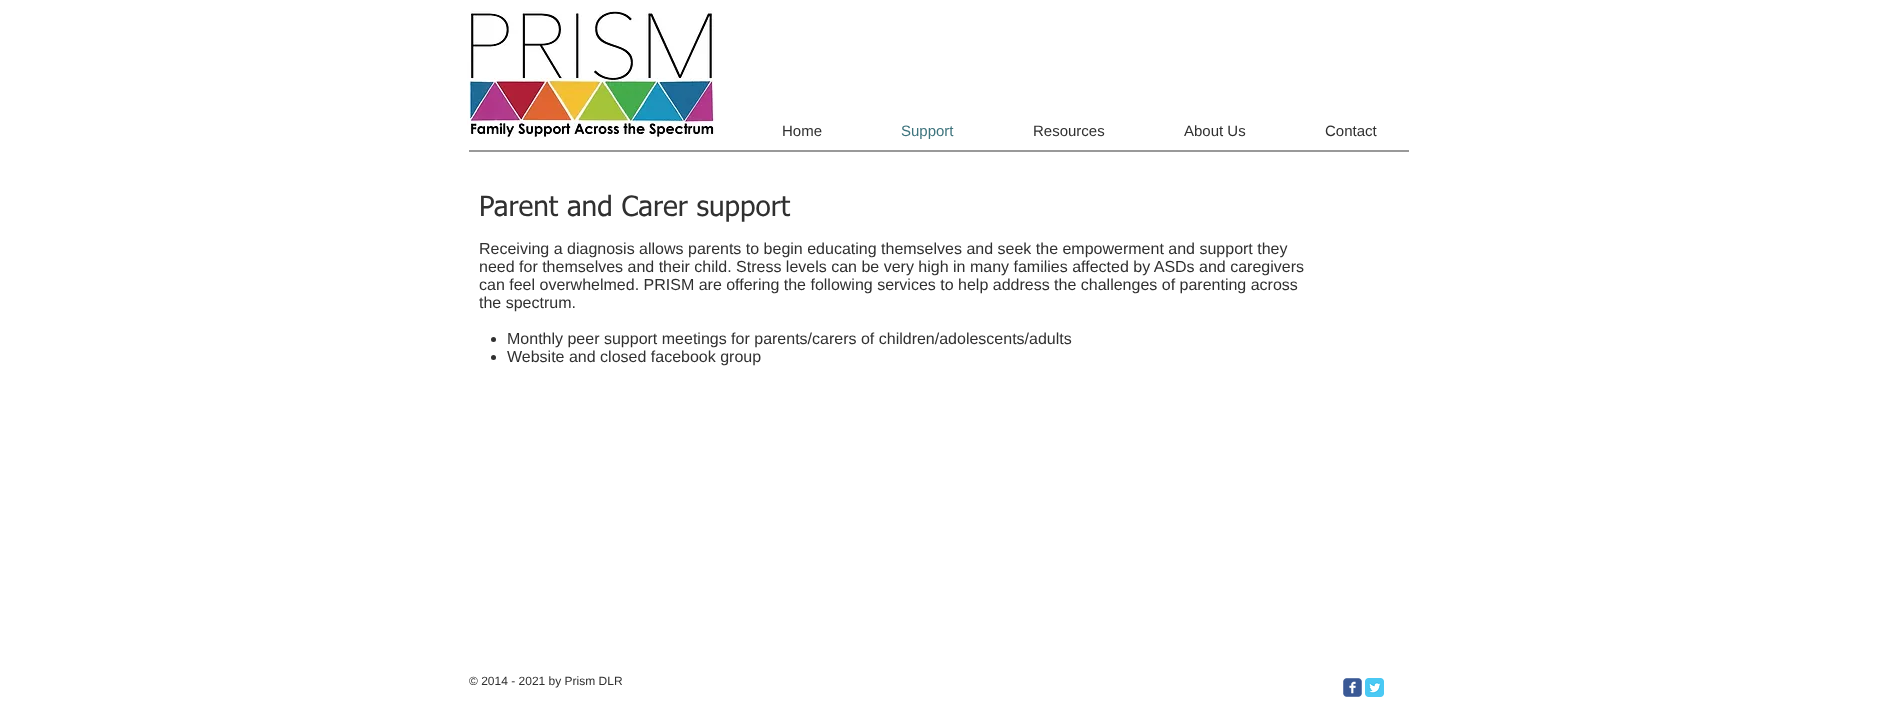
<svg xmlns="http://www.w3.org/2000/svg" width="1877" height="711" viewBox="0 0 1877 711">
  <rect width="100%" height="100%" fill="#ffffff"/>
  <image x="467" y="10" width="248" height="128" href="img1.png"/>
  <text x="782" y="136" font-family="Liberation Sans" font-size="15" fill="#303030">Home</text>
  <text x="901" y="136" font-family="Liberation Sans" font-size="15" fill="#3e747d">Support</text>
  <text x="1033" y="136" font-family="Liberation Sans" font-size="15" fill="#303030">Resources</text>
  <text x="1184" y="136" font-family="Liberation Sans" font-size="15" fill="#303030">About Us</text>
  <text x="1325" y="136" font-family="Liberation Sans" font-size="15" fill="#303030">Contact</text>
  <rect x="469" y="150" width="940" height="2" fill="#999999"/>
  <text x="479" y="216" font-family="tahoma" font-size="28" fill="#303030">Parent and Carer support</text>
  <text x="479" y="254" font-family="Liberation Sans" font-size="16" fill="#303030">Receiving a diagnosis allows parents to begin educating themselves and seek the empowerment and support they</text>
  <text x="479" y="272" font-family="Liberation Sans" font-size="16" fill="#303030">need for themselves and their child. Stress levels can be very high in many families affected by ASDs and caregivers</text>
  <text x="479" y="290" font-family="Liberation Sans" font-size="16" fill="#303030">can feel overwhelmed. PRISM are offering the following services to help address the challenges of parenting across</text>
  <text x="479" y="308" font-family="Liberation Sans" font-size="16" fill="#303030">the spectrum.</text>
  <circle cx="493.5" cy="339.5" r="2.5" fill="#303030"/>
  <text x="507" y="344" font-family="Liberation Sans" font-size="16" fill="#303030">Monthly peer support meetings for parents/carers of children/adolescents/adults</text>
  <circle cx="493.5" cy="357.5" r="2.5" fill="#303030"/>
  <text x="507" y="362" font-family="Liberation Sans" font-size="16" fill="#303030">Website and closed facebook group</text>
  <text x="469" y="685" font-family="Liberation Sans" font-size="12" fill="#303030">© 2014 - 2021 by Prism DLR</text>
  <image x="1343" y="678" width="19" height="19" href="img2.png"/>
  <image x="1365" y="678" width="19" height="19" href="img3.png"/>
</svg>
